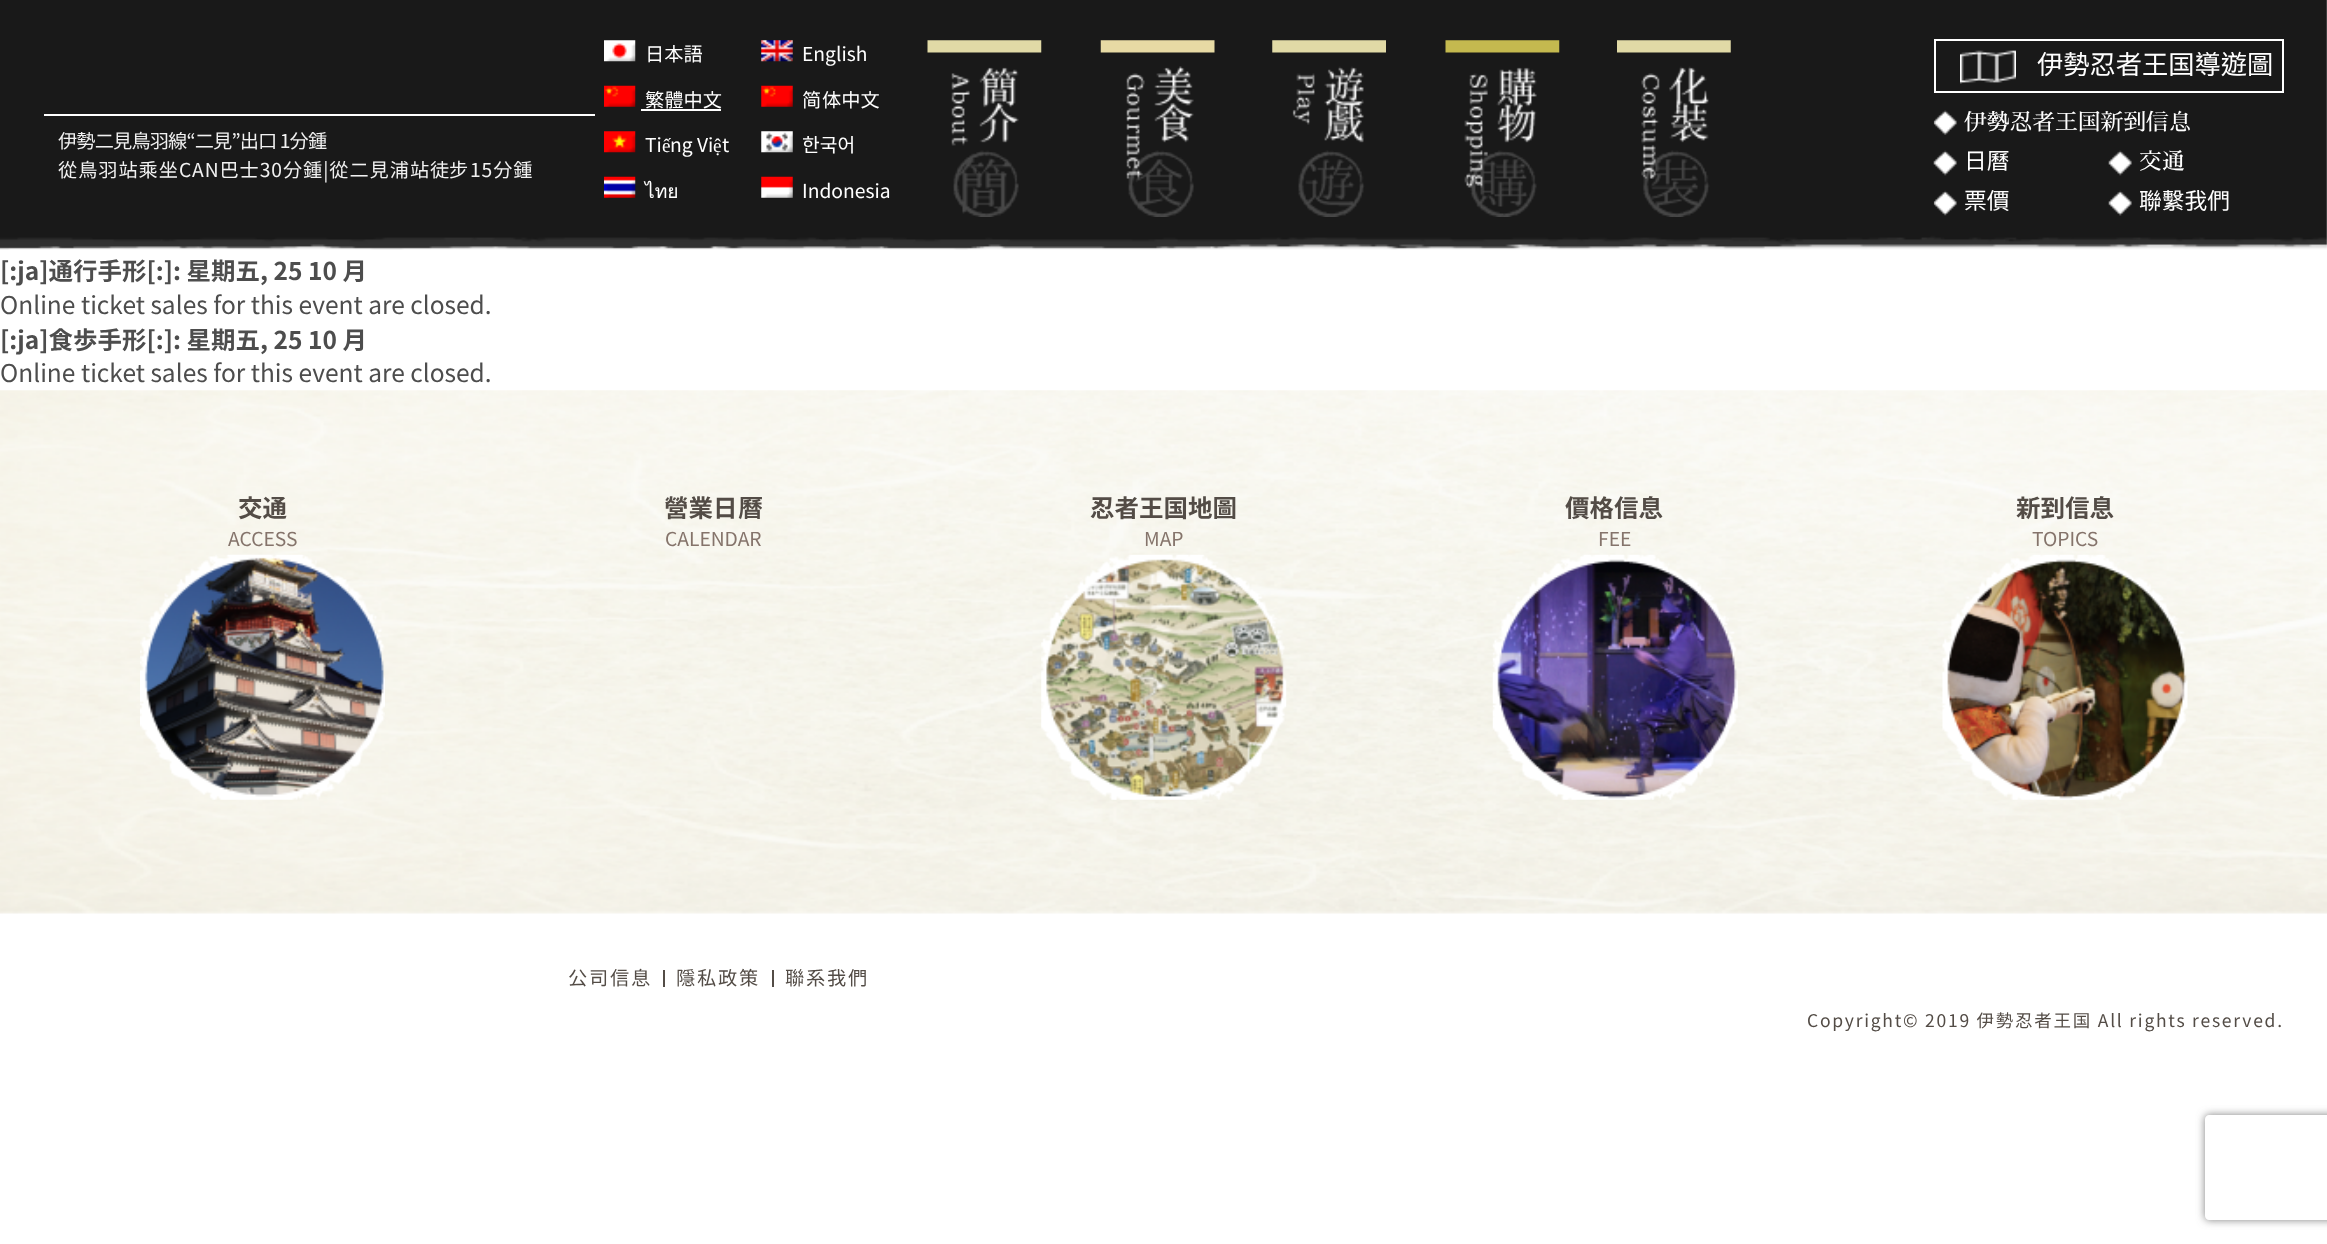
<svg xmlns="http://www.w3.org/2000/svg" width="2327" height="1244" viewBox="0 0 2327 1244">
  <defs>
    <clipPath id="clip1"><path d="M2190 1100H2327V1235H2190ZM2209 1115H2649C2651 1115 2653 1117 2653 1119V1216C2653 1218 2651 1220 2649 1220H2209C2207 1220 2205 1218 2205 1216V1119C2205 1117 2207 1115 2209 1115Z" clip-rule="evenodd"/></clipPath>
    <filter id="blur1" x="-50%" y="-200%" width="200%" height="500%"><feGaussianBlur stdDeviation="4.5"/></filter>
  </defs>
  <rect width="100%" height="100%" fill="#ffffff"/>
  <image x="0" y="0" width="2327" height="250" href="img1.png"/>
  <rect x="44" y="114" width="551" height="2" fill="#ffffff"/>
  <text x="58" y="148" font-family="Noto Sans JP" font-size="19.25" letter-spacing="-0.9" fill="#f1f1f1">伊勢二見鳥羽線“二見”出口 1分鍾</text>
  <text x="58" y="177" font-family="Noto Sans JP" font-size="19.25" letter-spacing="0.9" fill="#f1f1f1">從鳥羽站乘坐CAN巴士30分鍾|從二見浦站徒</text>
  <text x="449" y="177" font-family="Noto Sans CJK TC" font-size="19.25" letter-spacing="0.9" fill="#f1f1f1">步</text>
  <text x="470" y="177" font-family="Noto Sans JP" font-size="19.25" letter-spacing="0.9" fill="#f1f1f1">15分鍾</text>
  <image x="604" y="40" width="32" height="22" href="img2.png"/>
  <text x="645" y="61" font-family="Noto Sans JP" font-size="19.25" fill="#ffffff">日本語</text>
  <image x="761" y="40" width="32" height="22" href="img3.png"/>
  <text x="802" y="61" font-family="Noto Sans JP" font-size="19.25" fill="#ffffff">English</text>
  <image x="604" y="85" width="32" height="22" href="img4.png"/>
  <text x="645" y="107" font-family="Noto Sans JP" font-size="19.25" fill="#ffffff">繁體中文</text>
  <rect x="641" y="109" width="80" height="2" fill="#ffffff"/>
  <image x="761" y="85" width="32" height="22" href="img5.png"/>
  <text x="802" y="107" font-family="Noto Sans CJK TC" font-size="19.25" fill="#ffffff">简</text>
  <text x="822" y="107" font-family="Noto Sans JP" font-size="19.25" fill="#ffffff">体中文</text>
  <image x="604" y="131" width="32" height="22" href="img6.png"/>
  <text x="645" y="152" font-family="Noto Sans JP" font-size="19.25" fill="#ffffff">Ti</text>
  <text x="662" y="152" font-family="Liberation Serif" font-size="19.25" fill="#ffffff">ế</text>
  <text x="670" y="152" font-family="Noto Sans JP" font-size="19.25" fill="#ffffff">ng Vi</text>
  <text x="713" y="152" font-family="Liberation Serif" font-size="19.25" fill="#ffffff">ệ</text>
  <text x="722" y="152" font-family="Noto Sans JP" font-size="19.25" fill="#ffffff">t</text>
  <image x="761" y="131" width="32" height="22" href="img7.png"/>
  <text x="802" y="152" font-family="Noto Sans CJK TC" font-size="19.25" fill="#ffffff">한국어</text>
  <image x="604" y="176" width="32" height="22" href="img8.png"/>
  <text x="645" y="198" font-family="Loma" font-size="19.25" fill="#ffffff">ไทย</text>
  <image x="761" y="176" width="32" height="22" href="img9.png"/>
  <text x="802" y="198" font-family="Noto Sans JP" font-size="19.25" fill="#ffffff">Indonesia</text>
  <image x="927" y="40" width="115" height="177" href="img10.png"/>
  <image x="1100" y="40" width="115" height="177" href="img11.png"/>
  <image x="1272" y="40" width="114" height="177" href="img12.png"/>
  <image x="1445" y="40" width="115" height="177" href="img13.png"/>
  <image x="1617" y="40" width="114" height="177" href="img14.png"/>
  <rect x="1935" y="40" width="348" height="52" fill="none" stroke="#ffffff" stroke-width="2"/>
  <image x="1960" y="50" width="56" height="34" href="img15.png"/>
  <text x="2037" y="74" font-family="Noto Sans CJK TC" font-size="26.25" fill="#ffffff">伊勢忍者王国導遊圖</text>
  <image x="1933" y="110" width="24" height="25" href="img16.png"/>
  <text x="1964" y="130" font-family="Sawarabi Mincho" font-size="22.75" fill="#ffffff">伊勢忍者王国新到信息</text>
  <image x="1933" y="150" width="24" height="26" href="img17.png"/>
  <text x="1964" y="169" font-family="Noto Sans CJK TC" font-size="22.75" fill="#ffffff">日曆</text>
  <image x="2108" y="150" width="24" height="26" href="img17.png"/>
  <text x="2139" y="169" font-family="Sawarabi Mincho" font-size="22.75" fill="#ffffff">交通</text>
  <image x="1933" y="190" width="24" height="26" href="img18.png"/>
  <text x="1964" y="209" font-family="Noto Sans CJK TC" font-size="22.75" fill="#ffffff">票價</text>
  <image x="2108" y="190" width="24" height="26" href="img19.png"/>
  <text x="2139" y="209" font-family="Noto Sans CJK TC" font-size="22.75" fill="#ffffff">聯繫我們</text>
  <text x="0" y="280" font-family="Noto Sans JP" font-size="24.5" font-weight="bold" fill="#4d4d4d">[:ja]通行手形[:]: 星期五, 25 10 月</text>
  <text x="0" y="314" font-family="Noto Sans JP" font-size="24.5" fill="#4d4d4d">Online ticket sales for this event are closed.</text>
  <text x="0" y="349" font-family="Noto Sans JP" font-size="24.5" font-weight="bold" fill="#4d4d4d">[:ja]食歩手形[:]: 星期五, 25 10 月</text>
  <text x="0" y="382" font-family="Noto Sans JP" font-size="24.5" fill="#4d4d4d">Online ticket sales for this event are closed.</text>
  <image x="0" y="390" width="2327" height="524" href="img20.png"/>
  <text x="238" y="517" font-family="Noto Sans JP" font-size="24.5" font-weight="bold" fill="#534c46">交通</text>
  <text x="228" y="546" font-family="Noto Sans JP" font-size="19.25" fill="#85746b">ACCESS</text>
  <image x="140" y="554" width="245" height="246" href="img21.png"/>
  <text x="664" y="517" font-family="Noto Sans JP" font-size="24.5" font-weight="bold" fill="#534c46">營業日</text>
  <text x="738" y="517" font-family="Noto Sans CJK TC" font-size="24.5" font-weight="bold" fill="#534c46">曆</text>
  <text x="665" y="546" font-family="Noto Sans JP" font-size="19.25" fill="#85746b">CALENDAR</text>
  <text x="1090" y="517" font-family="Noto Sans JP" font-size="24.5" font-weight="bold" fill="#534c46">忍者王国地圖</text>
  <text x="1144" y="546" font-family="Noto Sans JP" font-size="19.25" fill="#85746b">MAP</text>
  <image x="1041" y="554" width="246" height="246" href="img22.png"/>
  <text x="1565" y="517" font-family="Noto Sans JP" font-size="24.5" font-weight="bold" fill="#534c46">價格信息</text>
  <text x="1598" y="546" font-family="Noto Sans JP" font-size="19.25" fill="#85746b">FEE</text>
  <image x="1492" y="554" width="246" height="246" href="img23.png"/>
  <text x="2016" y="517" font-family="Noto Sans JP" font-size="24.5" font-weight="bold" fill="#534c46">新到信息</text>
  <text x="2032" y="546" font-family="Noto Sans JP" font-size="19.25" fill="#85746b">TOPICS</text>
  <image x="1942" y="554" width="246" height="246" href="img24.png"/>
  <text x="568" y="985" font-family="Noto Sans JP" font-size="19.25" letter-spacing="1.75" fill="#534c46">公司信息</text>
  <rect x="663" y="970" width="2" height="17" fill="#534c46"/>
  <text x="676" y="985" font-family="Noto Sans JP" font-size="19.25" letter-spacing="1.75" fill="#534c46">隱私政策</text>
  <rect x="772" y="970" width="2" height="17" fill="#534c46"/>
  <text x="785" y="985" font-family="Noto Sans JP" font-size="19.25" letter-spacing="1.75" fill="#534c46">聯系我們</text>
  <text x="1807" y="1027" font-family="Noto Sans JP" font-size="17.5" letter-spacing="1.75" fill="#534c46">Copyright© 2019 伊勢忍者王国 All rights reserved.</text>
  <g clip-path="url(#clip1)">
    <rect x="2205" y="1115" width="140" height="105" rx="4" fill="#808080" filter="url(#blur1)"/>
  </g>
</svg>
